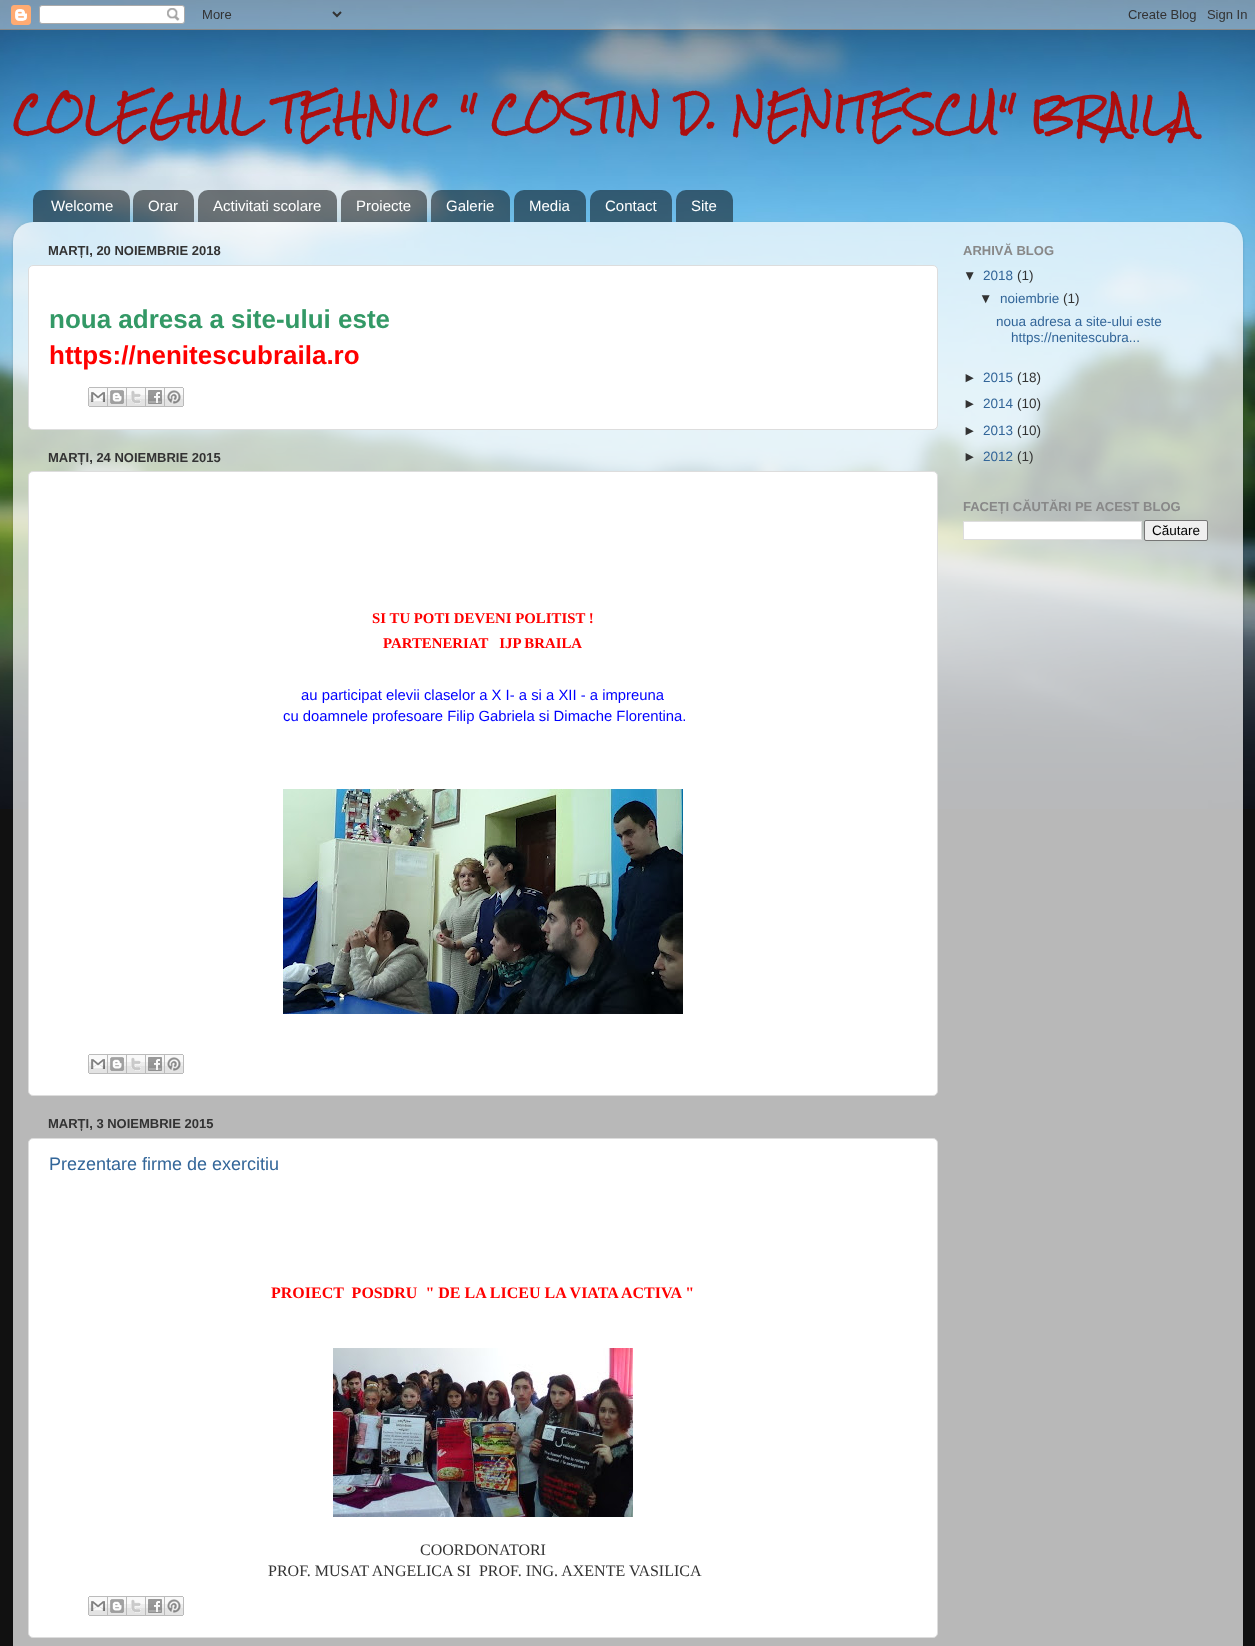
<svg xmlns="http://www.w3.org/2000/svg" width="1255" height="1646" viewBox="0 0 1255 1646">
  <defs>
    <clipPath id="clip1"><path d="M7 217H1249V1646H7ZM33 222H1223C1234 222 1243 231 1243 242V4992H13V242C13 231 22 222 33 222Z" clip-rule="evenodd"/></clipPath>
    <filter id="blur1" x="-50%" y="-200%" width="200%" height="500%"><feGaussianBlur stdDeviation="1.5"/></filter>
  </defs>
  <rect width="100%" height="100%" fill="#111111"/>
  <image x="0" y="0" width="1255" height="809" href="img1.png"/>
  <image x="0" y="0" width="1255" height="30" href="img2.png"/>
  <text x="13" y="129" font-family="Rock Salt" font-size="36" font-weight="bold" fill="#ac0f0f">COLEGIUL TEHNIC " COSTIN D. NENITESCU" BRAILA</text>
  <image x="33" y="190" width="97" height="32" href="img3.png"/>
  <text x="51" y="211" font-family="Liberation Sans" font-size="15" fill="#ffffff">Welcome</text>
  <image x="133" y="190" width="61" height="32" href="img4.png"/>
  <text x="148" y="211" font-family="Liberation Sans" font-size="15" fill="#ffffff">Orar</text>
  <image x="198" y="190" width="139" height="32" href="img5.png"/>
  <text x="213" y="211" font-family="Liberation Sans" font-size="15" fill="#ffffff">Activitati scolare</text>
  <image x="341" y="190" width="86" height="32" href="img6.png"/>
  <text x="356" y="211" font-family="Liberation Sans" font-size="15" fill="#ffffff">Proiecte</text>
  <image x="431" y="190" width="79" height="32" href="img7.png"/>
  <text x="446" y="211" font-family="Liberation Sans" font-size="15" fill="#ffffff">Galerie</text>
  <image x="514" y="190" width="72" height="32" href="img8.png"/>
  <text x="529" y="211" font-family="Liberation Sans" font-size="15" fill="#ffffff">Media</text>
  <image x="590" y="190" width="82" height="32" href="img9.png"/>
  <text x="605" y="211" font-family="Liberation Sans" font-size="15" fill="#ffffff">Contact</text>
  <image x="676" y="190" width="57" height="32" href="img10.png"/>
  <text x="691" y="211" font-family="Liberation Sans" font-size="15" fill="#ffffff">Site</text>
  <g clip-path="url(#clip1)">
    <rect x="13" y="223" width="1230" height="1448" rx="20" fill="#000000" fill-opacity="0.15" filter="url(#blur1)"/>
  </g>
  <image x="13" y="222" width="1230" height="1424" href="img11.png"/>
  <text x="48" y="255" font-family="Liberation Sans" font-size="13" font-weight="bold" fill="#333333">MARȚI, 20 NOIEMBRIE 2018</text>
  <rect x="28.5" y="265.5" width="909" height="164" rx="4.5" fill="#ffffff" stroke="#dddddd"/>
  <text x="49" y="328" font-family="Liberation Sans" font-size="26" font-weight="bold" fill="#339966">noua adresa a site-ului este</text>
  <text x="49" y="364" font-family="Liberation Sans" font-size="26" font-weight="bold" fill="#ff0000">https://nenitescubraila.ro</text>
  <image x="88" y="387" width="20" height="20" href="img12.png"/>
  <image x="108" y="387" width="19" height="20" href="img13.png"/>
  <image x="127" y="387" width="19" height="20" href="img14.png"/>
  <image x="146" y="387" width="19" height="20" href="img15.png"/>
  <image x="165" y="387" width="19" height="20" href="img16.png"/>
  <text x="48" y="462" font-family="Liberation Sans" font-size="13" font-weight="bold" fill="#333333">MARȚI, 24 NOIEMBRIE 2015</text>
  <rect x="28.5" y="471.5" width="909" height="624" rx="4.5" fill="#ffffff" stroke="#dddddd"/>
  <text x="372" y="623" font-family="Liberation Serif" font-size="14.85" font-weight="bold" fill="#ff0000">SI TU POTI DEVENI POLITIST !</text>
  <text x="383" y="648" font-family="Liberation Serif" font-size="14.85" font-weight="bold" fill="#ff0000" xml:space="preserve">PARTENERIAT   IJP BRAILA</text>
  <text x="301" y="700" font-family="Liberation Sans" font-size="14.85" fill="#0000ff">au participat elevii claselor a X I- a si a XII - a impreuna</text>
  <text x="283" y="721" font-family="Liberation Sans" font-size="14.85" fill="#0000ff">cu doamnele profesoare Filip Gabriela si Dimache Florentina.</text>
  <image x="283" y="789" width="400" height="225" href="img17.png"/>
  <image x="88" y="1054" width="20" height="20" href="img12.png"/>
  <image x="108" y="1054" width="19" height="20" href="img13.png"/>
  <image x="127" y="1054" width="19" height="20" href="img14.png"/>
  <image x="146" y="1054" width="19" height="20" href="img15.png"/>
  <image x="165" y="1054" width="19" height="20" href="img16.png"/>
  <text x="48" y="1128" font-family="Liberation Sans" font-size="13" font-weight="bold" fill="#333333">MARȚI, 3 NOIEMBRIE 2015</text>
  <rect x="28.5" y="1138.5" width="909" height="499" rx="4.5" fill="#ffffff" stroke="#dddddd"/>
  <text x="49" y="1170" font-family="Liberation Sans" font-size="18" fill="#336699">Prezentare firme de exercitiu</text>
  <text x="271" y="1298" font-family="Liberation Serif" font-size="16" font-weight="bold" fill="#ff0000" xml:space="preserve">PROIECT  POSDRU  " DE LA LICEU LA VIATA ACTIVA "</text>
  <image x="333" y="1348" width="300" height="169" href="img18.png"/>
  <text x="420" y="1555" font-family="Liberation Serif" font-size="16" fill="#333333">COORDONATORI</text>
  <text x="268" y="1576" font-family="Liberation Serif" font-size="16" fill="#333333" xml:space="preserve">PROF. MUSAT ANGELICA SI  PROF. ING. AXENTE VASILICA</text>
  <image x="88" y="1596" width="20" height="20" href="img12.png"/>
  <image x="108" y="1596" width="19" height="20" href="img13.png"/>
  <image x="127" y="1596" width="19" height="20" href="img14.png"/>
  <image x="146" y="1596" width="19" height="20" href="img15.png"/>
  <image x="165" y="1596" width="19" height="20" href="img16.png"/>
  <text x="963" y="255" font-family="Liberation Sans" font-size="13" font-weight="bold" fill="#888888">ARHIVĂ BLOG</text>
  <text x="963" y="280" font-family="Liberation Sans" font-size="13.5" fill="#333333">▼</text>
  <text x="983" y="280" font-family="Liberation Sans" font-size="13.5" fill="#336699">2018</text>
  <text x="1017" y="280" font-family="Liberation Sans" font-size="13.5" fill="#333333">(1)</text>
  <text x="979" y="303" font-family="Liberation Sans" font-size="13.5" fill="#333333">▼</text>
  <text x="1000" y="303" font-family="Liberation Sans" font-size="13.5" fill="#336699">noiembrie</text>
  <text x="1063" y="303" font-family="Liberation Sans" font-size="13.5" fill="#333333">(1)</text>
  <text x="996" y="326" font-family="Liberation Sans" font-size="13.5" fill="#336699">noua adresa a site-ului este</text>
  <text x="1011" y="342" font-family="Liberation Sans" font-size="13.5" fill="#336699">https://nenitescubra...</text>
  <text x="963" y="382" font-family="Liberation Sans" font-size="13.5" fill="#333333">►</text>
  <text x="983" y="382" font-family="Liberation Sans" font-size="13.5" fill="#336699">2015</text>
  <text x="1017" y="382" font-family="Liberation Sans" font-size="13.5" fill="#333333">(18)</text>
  <text x="963" y="408" font-family="Liberation Sans" font-size="13.5" fill="#333333">►</text>
  <text x="983" y="408" font-family="Liberation Sans" font-size="13.5" fill="#336699">2014</text>
  <text x="1017" y="408" font-family="Liberation Sans" font-size="13.5" fill="#333333">(10)</text>
  <text x="963" y="435" font-family="Liberation Sans" font-size="13.5" fill="#333333">►</text>
  <text x="983" y="435" font-family="Liberation Sans" font-size="13.5" fill="#336699">2013</text>
  <text x="1017" y="435" font-family="Liberation Sans" font-size="13.5" fill="#333333">(10)</text>
  <text x="963" y="461" font-family="Liberation Sans" font-size="13.5" fill="#333333">►</text>
  <text x="983" y="461" font-family="Liberation Sans" font-size="13.5" fill="#336699">2012</text>
  <text x="1017" y="461" font-family="Liberation Sans" font-size="13.5" fill="#333333">(1)</text>
  <text x="963" y="511" font-family="Liberation Sans" font-size="13" font-weight="bold" fill="#888888">FACEȚI CĂUTĂRI PE ACEST BLOG</text>
  <rect x="963.5" y="521.5" width="178" height="18" fill="#ffffff" stroke="#dddddd"/>
  <rect x="1144.5" y="520.5" width="63" height="20" rx="1.5" fill="#efefef" stroke="#767676"/>
  <text x="1152" y="535" font-family="Liberation Sans" font-size="13.5" fill="#000000">Căutare</text>
</svg>
